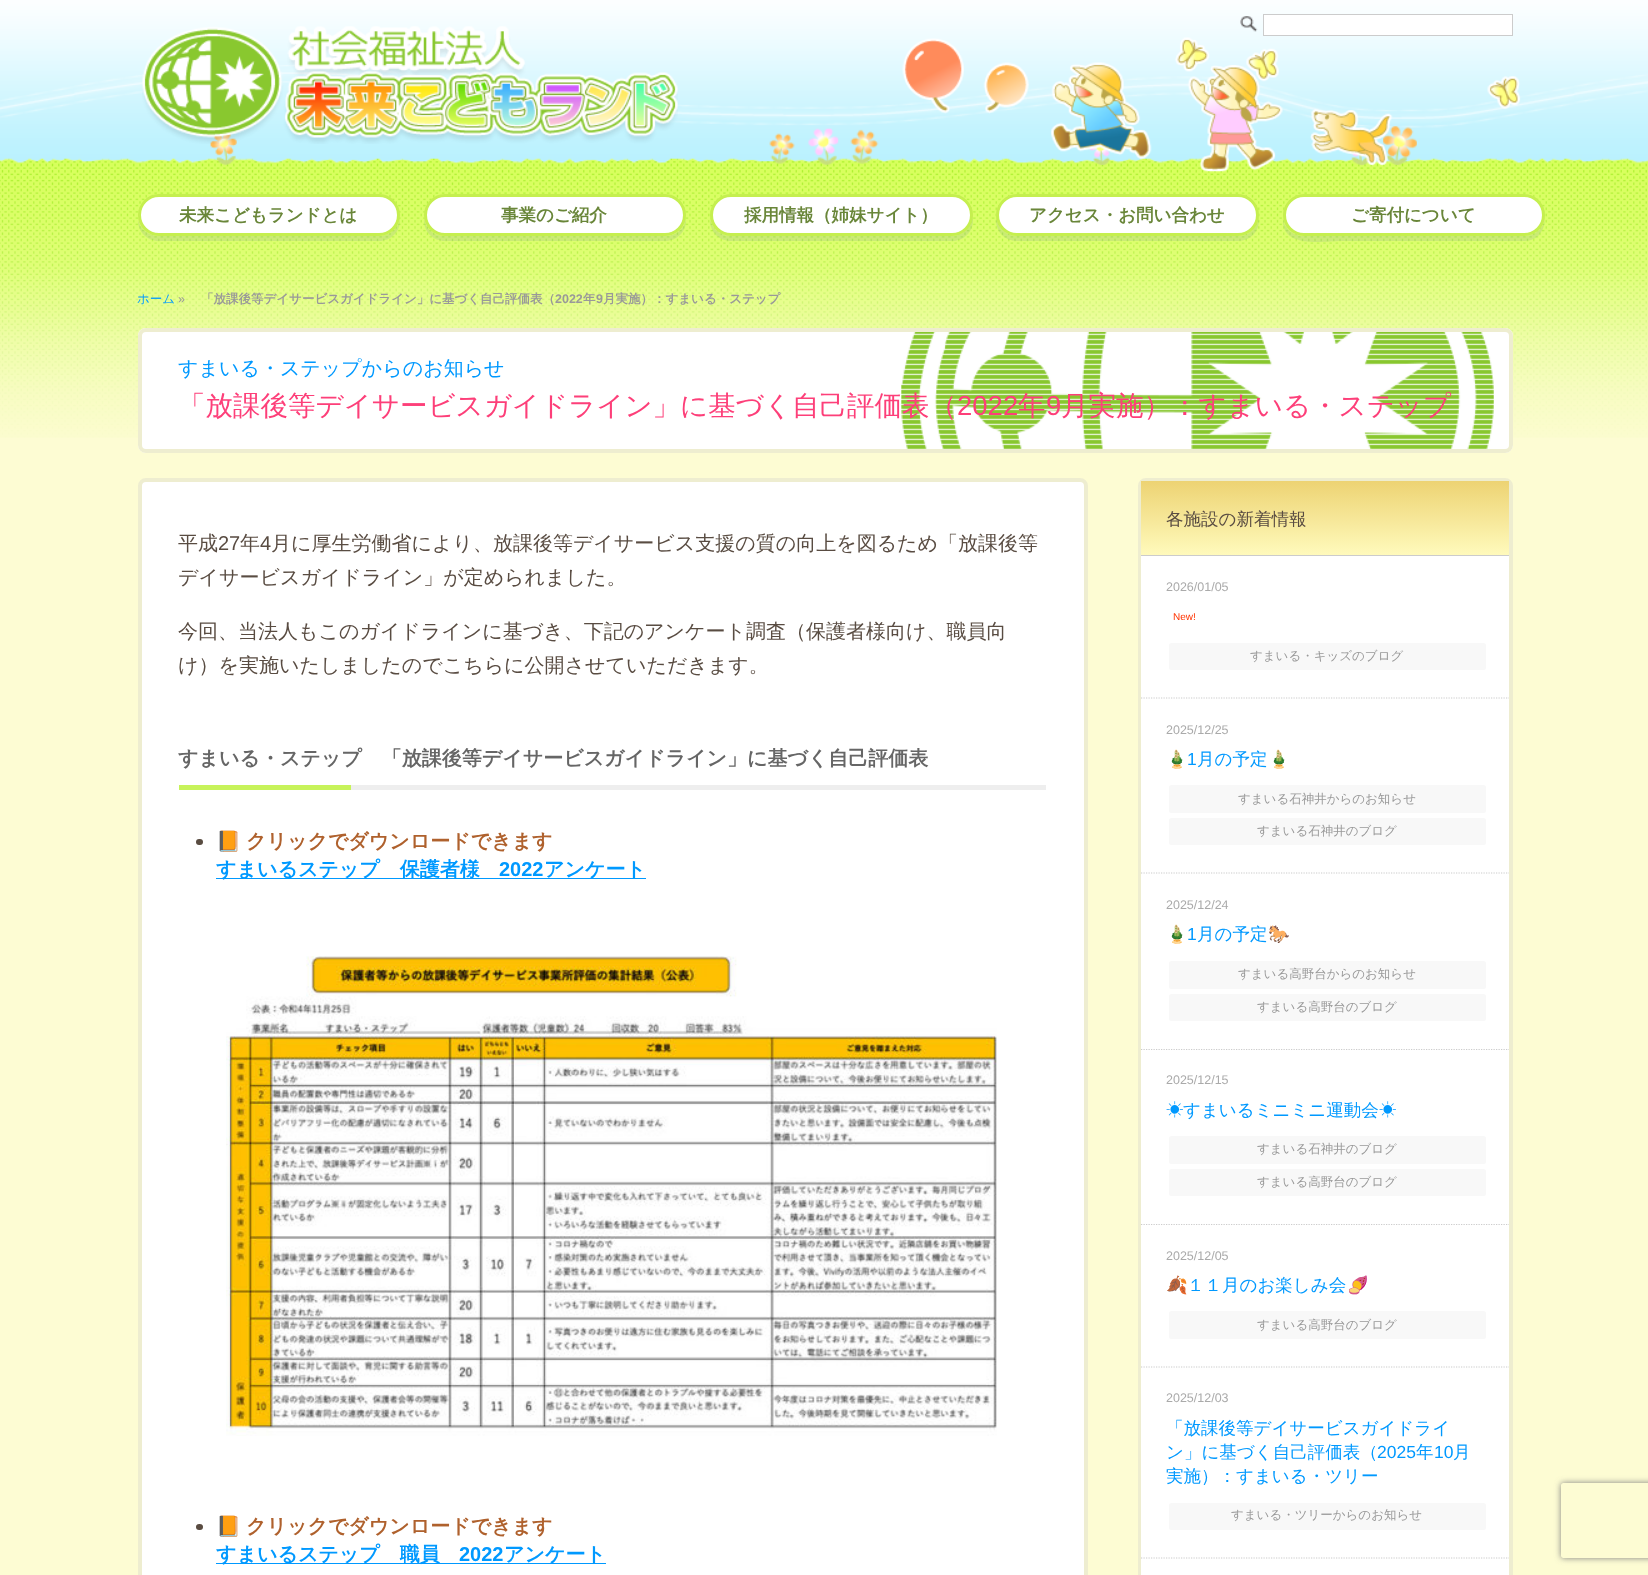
<svg xmlns="http://www.w3.org/2000/svg" width="1648" height="1575" viewBox="0 0 1648 1575">
  <defs>
    <linearGradient id="g1" gradientUnits="userSpaceOnUse" x1="1325" y1="481" x2="1325" y2="555"><stop offset="0" stop-color="#edd373"/><stop offset="1" stop-color="#fffabc"/></linearGradient>
    <clipPath id="clip1"><path d="M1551 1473H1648V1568H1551ZM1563.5 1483H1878.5C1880 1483 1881 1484 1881 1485.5V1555.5C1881 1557 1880 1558 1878.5 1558H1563.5C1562 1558 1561 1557 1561 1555.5V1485.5C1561 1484 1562 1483 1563.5 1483Z" clip-rule="evenodd"/></clipPath>
    <filter id="blur1" x="-50%" y="-200%" width="200%" height="500%"><feGaussianBlur stdDeviation="3"/></filter>
  </defs>
  <rect width="100%" height="100%" fill="#fdfcd3"/>
  <image x="0" y="0" width="1648" height="438" href="img1.png"/>
  <image x="142" y="26" width="536" height="118" href="img2.png"/>
  <image x="1240" y="16" width="18" height="16" href="img3.png"/>
  <rect x="1263.5" y="14.5" width="249" height="21" fill="#ffffff" stroke="#cccccc"/>
  <image x="902" y="38" width="127" height="76" href="img4.png"/>
  <image x="1175" y="37" width="104" height="45" href="img5.png"/>
  <image x="1051" y="62" width="342" height="110" href="img6.png"/>
  <image x="1487" y="76" width="34" height="33" href="img7.png"/>
  <path d="M138 220C138 232 147 241 159 241H379C391 241 400 232 400 220V218C399 228 390 236 379 236H159C149 236 140 229 138 220Z" fill="#7187a4" fill-opacity="0.16"/>
  <rect x="139.5" y="195.5" width="259" height="39" rx="19.5" fill="#ffffff" stroke="#c5ef4f" stroke-width="3"/>
  <text x="179" y="221" font-family="WenQuanYi Zen Hei" font-size="17.5" font-weight="bold" fill="#698639">未来こどもランドとは</text>
  <path d="M424 219V220C424 232 433 241 445 241H665C677 241 686 232 686 220V219C684 229 676 236 665 236H445C434 236 426 229 424 219Z" fill="#7187a4" fill-opacity="0.16"/>
  <rect x="425.5" y="195.5" width="259" height="39" rx="19.5" fill="#ffffff" stroke="#c5ef4f" stroke-width="3"/>
  <text x="501" y="221" font-family="WenQuanYi Zen Hei" font-size="17.5" font-weight="bold" fill="#698639">事業のご紹介</text>
  <path d="M710 218V220C710 232 719 241 731 241H952C964 241 973 232 973 220L972 215C972 227 963 236 951 236H731C720 236 711 228 710 218Z" fill="#7187a4" fill-opacity="0.16"/>
  <rect x="711.5" y="195.5" width="260" height="39" rx="19.5" fill="#ffffff" stroke="#c5ef4f" stroke-width="3"/>
  <text x="744" y="221" font-family="WenQuanYi Zen Hei" font-size="17.5" font-weight="bold" fill="#698639">採用情報（姉妹サイト）</text>
  <path d="M996 216V220C996 232 1005 241 1017 241H1238C1250 241 1259 232 1259 220V216C1258 228 1249 236 1238 236H1018C1006 236 997 228 996 216Z" fill="#7187a4" fill-opacity="0.16"/>
  <rect x="997.5" y="195.5" width="260" height="39" rx="19.5" fill="#ffffff" stroke="#c5ef4f" stroke-width="3"/>
  <text x="1029" y="221" font-family="WenQuanYi Zen Hei" font-size="17.5" font-weight="bold" fill="#698639">アクセス・お問い合わせ</text>
  <path d="M1283 220C1282 249 1325 241 1341 241H1524C1531 241 1538 238 1541 232C1544 228 1545 222 1545 218C1544 228 1535 236 1524 236H1304C1294 236 1285 229 1283 220Z" fill="#7187a4" fill-opacity="0.16"/>
  <rect x="1284.5" y="195.5" width="259" height="39" rx="19.5" fill="#ffffff" stroke="#c5ef4f" stroke-width="3"/>
  <text x="1351" y="221" font-family="WenQuanYi Zen Hei" font-size="17.5" font-weight="bold" fill="#698639">ご寄付について</text>
  <text x="137" y="303" font-family="WenQuanYi Zen Hei" font-size="12.5" font-weight="500" fill="#0099ff">ホーム</text>
  <text x="178" y="303" font-family="Liberation Sans" font-size="12.5" fill="#999999">»</text>
  <text x="201" y="303" font-family="WenQuanYi Zen Hei" font-size="12.5" font-weight="bold" fill="#999999">「放課後等デイサービスガイドライン」に基づく自己評価表（</text>
  <text x="555" y="303" font-family="Liberation Sans" font-size="12.5" font-weight="bold" fill="#999999">2022</text>
  <text x="583" y="303" font-family="WenQuanYi Zen Hei" font-size="12.5" font-weight="bold" fill="#999999">年</text>
  <text x="596" y="303" font-family="Liberation Sans" font-size="12.5" font-weight="bold" fill="#999999">9</text>
  <text x="603" y="303" font-family="WenQuanYi Zen Hei" font-size="12.5" font-weight="bold" fill="#999999">月実施）：すまいる・ステップ</text>
  <rect x="138" y="328" width="1375" height="125" rx="8" fill="#ffffff"/>
  <image x="901" y="332" width="593" height="117" href="img8.png"/>
  <rect x="140" y="330" width="1371" height="121" rx="6" fill="none" stroke="#eeedd0" stroke-width="4"/>
  <text x="178" y="375" font-family="WenQuanYi Zen Hei" font-size="20" font-weight="500" fill="#0099ff">すまいる・ステップからのお知らせ</text>
  <text x="178" y="415" font-family="WenQuanYi Zen Hei" font-size="27.5" font-weight="500" fill="#fd3f79">「放課後等デイサービスガイドライン」に基づく自己評価表（</text>
  <text x="957" y="415" font-family="Liberation Sans" font-size="27.5" fill="#fd3f79">2022</text>
  <text x="1018" y="415" font-family="WenQuanYi Zen Hei" font-size="27.5" font-weight="500" fill="#fd3f79">年</text>
  <text x="1046" y="415" font-family="Liberation Sans" font-size="27.5" fill="#fd3f79">9</text>
  <text x="1061" y="415" font-family="WenQuanYi Zen Hei" font-size="27.5" font-weight="500" fill="#fd3f79">月実施）：すまいる・ステップ</text>
  <rect x="140" y="480" width="946" height="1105" rx="6" fill="#ffffff" stroke="#eeedd0" stroke-width="4"/>
  <text x="178" y="550" font-family="WenQuanYi Zen Hei" font-size="20" font-weight="500" fill="#594c42">平成</text>
  <text x="218" y="550" font-family="Liberation Sans" font-size="20" fill="#594c42">27</text>
  <text x="240" y="550" font-family="WenQuanYi Zen Hei" font-size="20" font-weight="500" fill="#594c42">年</text>
  <text x="260" y="550" font-family="Liberation Sans" font-size="20" fill="#594c42">4</text>
  <text x="271" y="550" font-family="WenQuanYi Zen Hei" font-size="20" font-weight="500" fill="#594c42">月に厚生労働省により、放課後等デイサービス支援の質の向上を図るため「放課後等</text>
  <text x="178" y="584" font-family="WenQuanYi Zen Hei" font-size="20" font-weight="500" fill="#594c42">デイサービスガイドライン」が定められました。</text>
  <text x="178" y="638" font-family="WenQuanYi Zen Hei" font-size="20" font-weight="500" fill="#594c42">今回、当法人もこのガイドラインに基づき、下記のアンケート調査（保護者様向け、職員向</text>
  <text x="178" y="672" font-family="WenQuanYi Zen Hei" font-size="20" font-weight="500" fill="#594c42">け）を実施いたしましたのでこちらに公開させていただきます。</text>
  <rect x="351" y="785" width="695" height="5" fill="#eeeeee"/>
  <text x="178" y="765" font-family="WenQuanYi Zen Hei" font-size="20" font-weight="bold" fill="#666666">すまいる・ステップ　「放課後等デイサービスガイドライン」に基づく自己評価表</text>
  <rect x="179" y="785" width="172" height="5" fill="#c7f35a"/>
  <rect x="196" y="839" width="7" height="6" rx="3" fill="#594c41"/>
  <text x="216" y="848" font-family="Noto Color Emoji" font-size="20" font-weight="bold" fill="#af612d">📙</text>
  <text x="246" y="848" font-family="WenQuanYi Zen Hei" font-size="20" font-weight="bold" fill="#af612d">クリックでダウンロードできます</text>
  <rect x="216" y="878" width="430" height="1" fill="#0099ff"/>
  <text x="216" y="876" font-family="WenQuanYi Zen Hei" font-size="20" font-weight="bold" fill="#0099ff">すまいるステップ　保護者様</text>
  <text x="499" y="876" font-family="Liberation Sans" font-size="20" font-weight="bold" fill="#0099ff">2022</text>
  <text x="544" y="876" font-family="WenQuanYi Zen Hei" font-size="20" font-weight="bold" fill="#0099ff">アンケート</text>
  <image x="226" y="956" width="771" height="480" href="img9.png"/>
  <rect x="196" y="1524" width="7" height="6" rx="3" fill="#594c41"/>
  <text x="216" y="1533" font-family="Noto Color Emoji" font-size="20" font-weight="bold" fill="#af612d">📙</text>
  <text x="246" y="1533" font-family="WenQuanYi Zen Hei" font-size="20" font-weight="bold" fill="#af612d">クリックでダウンロードできます</text>
  <rect x="216" y="1563" width="390" height="1" fill="#0099ff"/>
  <text x="216" y="1561" font-family="WenQuanYi Zen Hei" font-size="20" font-weight="bold" fill="#0099ff">すまいるステップ　職員</text>
  <text x="459" y="1561" font-family="Liberation Sans" font-size="20" font-weight="bold" fill="#0099ff">2022</text>
  <text x="504" y="1561" font-family="WenQuanYi Zen Hei" font-size="20" font-weight="bold" fill="#0099ff">アンケート</text>
  <rect x="1140" y="480" width="371" height="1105" rx="6" fill="none" stroke="#eeedd0" stroke-width="4"/>
  <rect x="1141" y="481" width="368" height="74" fill="url(#g1)"/>
  <rect x="1141" y="555" width="368" height="1" fill="#cccccc"/>
  <text x="1166" y="525" font-family="WenQuanYi Zen Hei" font-size="17.5" font-weight="500" fill="#594c42">各施設の新着情報</text>
  <rect x="1141" y="556" width="368" height="494" fill="#ffffff"/>
  <path d="M1141 698H1509" fill="none" stroke="#cccccc" stroke-width="1.2" stroke-dasharray="1.25 1.25"/>
  <text x="1166" y="591" font-family="Liberation Sans" font-size="12.5" fill="#aaaaaa">2026/01/05</text>
  <text x="1173" y="620" font-family="Liberation Sans" font-size="10" fill="#ff3300">New!</text>
  <rect x="1169" y="643" width="317" height="27" rx="2.5" fill="#f8f8f8"/>
  <text x="1250" y="660" font-family="WenQuanYi Zen Hei" font-size="12.5" font-weight="500" fill="#999999">すまいる・キッズのブログ</text>
  <path d="M1141 873H1509" fill="none" stroke="#cccccc" stroke-width="1.2" stroke-dasharray="1.25 1.25"/>
  <text x="1166" y="734" font-family="Liberation Sans" font-size="12.5" fill="#aaaaaa">2025/12/25</text>
  <text x="1166" y="765" font-family="Noto Color Emoji" font-size="17.5" fill="#0099ff">🎍</text>
  <text x="1187" y="765" font-family="Liberation Sans" font-size="17.5" fill="#0099ff">1</text>
  <text x="1197" y="765" font-family="WenQuanYi Zen Hei" font-size="17.5" font-weight="500" fill="#0099ff">月の予定</text>
  <text x="1268" y="765" font-family="Noto Color Emoji" font-size="17.5" fill="#0099ff">🎍</text>
  <rect x="1169" y="785" width="317" height="28" rx="2.5" fill="#f8f8f8"/>
  <text x="1238" y="803" font-family="WenQuanYi Zen Hei" font-size="12.5" font-weight="500" fill="#999999">すまいる石神井からのお知らせ</text>
  <rect x="1169" y="818" width="317" height="27" rx="2.5" fill="#f8f8f8"/>
  <text x="1257" y="835" font-family="WenQuanYi Zen Hei" font-size="12.5" font-weight="500" fill="#999999">すまいる石神井のブログ</text>
  <path d="M1141 1049.5H1509" fill="none" stroke="#cccccc" stroke-width="1.2" stroke-dasharray="1.25 1.25"/>
  <text x="1166" y="909" font-family="Liberation Sans" font-size="12.5" fill="#aaaaaa">2025/12/24</text>
  <text x="1166" y="940" font-family="Noto Color Emoji" font-size="17.5" fill="#0099ff">🎍</text>
  <text x="1187" y="940" font-family="Liberation Sans" font-size="17.5" fill="#0099ff">1</text>
  <text x="1197" y="940" font-family="WenQuanYi Zen Hei" font-size="17.5" font-weight="500" fill="#0099ff">月の予定</text>
  <text x="1268" y="940" font-family="Noto Color Emoji" font-size="17.5" fill="#0099ff">🐎</text>
  <rect x="1169" y="961" width="317" height="28" rx="2.5" fill="#f8f8f8"/>
  <text x="1238" y="978" font-family="WenQuanYi Zen Hei" font-size="12.5" font-weight="500" fill="#999999">すまいる高野台からのお知らせ</text>
  <rect x="1169" y="994" width="317" height="27" rx="2.5" fill="#f8f8f8"/>
  <text x="1257" y="1011" font-family="WenQuanYi Zen Hei" font-size="12.5" font-weight="500" fill="#999999">すまいる高野台のブログ</text>
  <rect x="1141" y="1050" width="368" height="175" fill="#ffffff"/>
  <path d="M1141 1224.5H1509" fill="none" stroke="#cccccc" stroke-width="1.2" stroke-dasharray="1.25 1.25"/>
  <text x="1166" y="1084" font-family="Liberation Sans" font-size="12.5" fill="#aaaaaa">2025/12/15</text>
  <text x="1166" y="1116" font-family="IPAPGothic" font-size="17.5" fill="#0099ff">☀</text>
  <text x="1183" y="1116" font-family="WenQuanYi Zen Hei" font-size="17.5" font-weight="500" fill="#0099ff">すまいるミニミニ運動会</text>
  <text x="1379" y="1116" font-family="IPAPGothic" font-size="17.5" fill="#0099ff">☀</text>
  <rect x="1169" y="1136" width="317" height="28" rx="2.5" fill="#f8f8f8"/>
  <text x="1257" y="1153" font-family="WenQuanYi Zen Hei" font-size="12.5" font-weight="500" fill="#999999">すまいる石神井のブログ</text>
  <rect x="1169" y="1169" width="317" height="27" rx="2.5" fill="#f8f8f8"/>
  <text x="1257" y="1186" font-family="WenQuanYi Zen Hei" font-size="12.5" font-weight="500" fill="#999999">すまいる高野台のブログ</text>
  <rect x="1141" y="1225" width="368" height="350" fill="#ffffff"/>
  <path d="M1141 1367H1509" fill="none" stroke="#cccccc" stroke-width="1.2" stroke-dasharray="1.25 1.25"/>
  <text x="1166" y="1260" font-family="Liberation Sans" font-size="12.5" fill="#aaaaaa">2025/12/05</text>
  <text x="1166" y="1291" font-family="Noto Color Emoji" font-size="17.5" fill="#0099ff">🍂</text>
  <text x="1187" y="1291" font-family="WenQuanYi Zen Hei" font-size="17.5" font-weight="500" fill="#0099ff">１１月のお楽しみ会</text>
  <text x="1347" y="1291" font-family="Noto Color Emoji" font-size="17.5" fill="#0099ff">🍠</text>
  <rect x="1169" y="1311" width="317" height="28" rx="2.5" fill="#f8f8f8"/>
  <text x="1257" y="1329" font-family="WenQuanYi Zen Hei" font-size="12.5" font-weight="500" fill="#999999">すまいる高野台のブログ</text>
  <path d="M1141 1558H1509" fill="none" stroke="#cccccc" stroke-width="1.2" stroke-dasharray="1.25 1.25"/>
  <text x="1166" y="1402" font-family="Liberation Sans" font-size="12.5" fill="#aaaaaa">2025/12/03</text>
  <text x="1166" y="1434" font-family="WenQuanYi Zen Hei" font-size="17.5" font-weight="500" fill="#0099ff">「放課後等デイサービスガイドライ</text>
  <text x="1166" y="1458" font-family="WenQuanYi Zen Hei" font-size="17.5" font-weight="500" fill="#0099ff">ン」に基づく自己評価表（</text>
  <text x="1377" y="1458" font-family="Liberation Sans" font-size="17.5" fill="#0099ff">2025</text>
  <text x="1416" y="1458" font-family="WenQuanYi Zen Hei" font-size="17.5" font-weight="500" fill="#0099ff">年</text>
  <text x="1434" y="1458" font-family="Liberation Sans" font-size="17.5" fill="#0099ff">10</text>
  <text x="1453" y="1458" font-family="WenQuanYi Zen Hei" font-size="17.5" font-weight="500" fill="#0099ff">月</text>
  <text x="1166" y="1482" font-family="WenQuanYi Zen Hei" font-size="17.5" font-weight="500" fill="#0099ff">実施）：すまいる・ツリー</text>
  <rect x="1169" y="1503" width="317" height="27" rx="2.5" fill="#f8f8f8"/>
  <text x="1231" y="1519" font-family="WenQuanYi Zen Hei" font-size="12.5" font-weight="500" fill="#999999">すまいる・ツリーからのお知らせ</text>
  <g clip-path="url(#clip1)">
    <rect x="1561" y="1483" width="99" height="75" rx="2.5" fill="#808080" filter="url(#blur1)"/>
  </g>
</svg>
